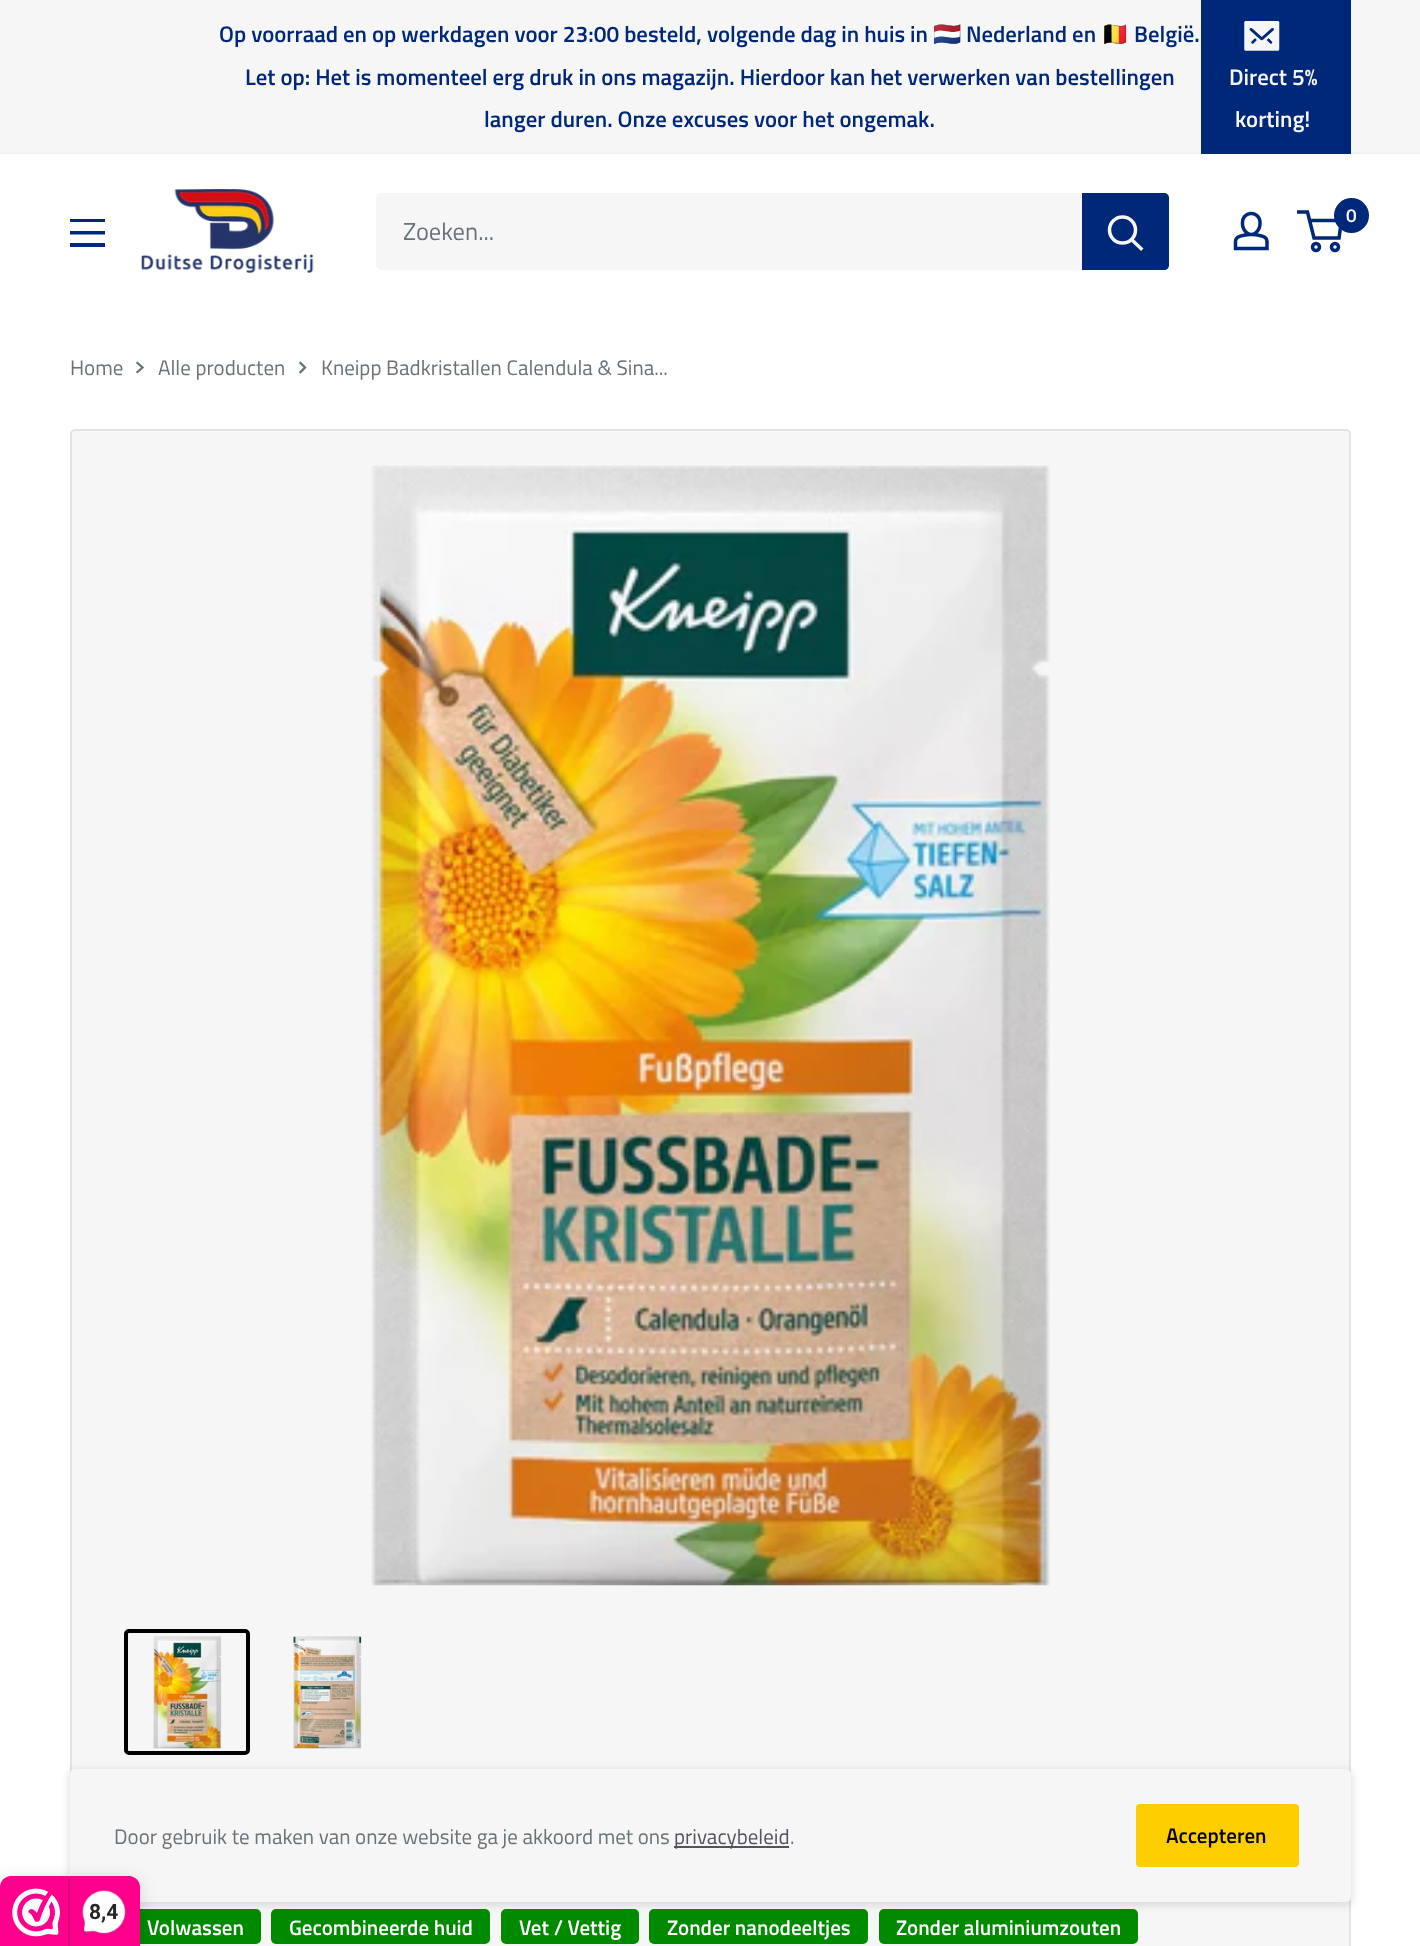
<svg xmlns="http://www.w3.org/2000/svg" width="1420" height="1946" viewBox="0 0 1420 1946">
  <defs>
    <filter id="blur1" x="-50%" y="-200%" width="200%" height="500%"><feGaussianBlur stdDeviation="3.5"/></filter>
    <filter id="blur2" x="-50%" y="-200%" width="200%" height="500%"><feGaussianBlur stdDeviation="9"/></filter>
  </defs>
  <rect width="100%" height="100%" fill="#ffffff"/>
  <rect x="0" y="0" width="1420" height="152" fill="#f6f6f7"/>
  <rect x="0" y="152" width="1420" height="2" fill="#f1f2f5"/>
  <text x="219" y="42" font-family="Titillium Web" font-size="22.75" font-weight="600" fill="#002878">Op voorraad en op werkdagen voor 23:00 besteld, volgende dag in huis in</text>
  <text x="933" y="42" font-family="Noto Color Emoji" font-size="22.75" font-weight="bold" fill="#002878">🇳🇱</text>
  <text x="966" y="42" font-family="Titillium Web" font-size="22.75" font-weight="600" fill="#002878">Nederland en</text>
  <text x="1101" y="42" font-family="Noto Color Emoji" font-size="22.75" font-weight="bold" fill="#002878">🇧🇪</text>
  <text x="1134" y="42" font-family="Titillium Web" font-size="22.75" font-weight="600" fill="#002878">België.</text>
  <text x="245" y="85" font-family="Titillium Web" font-size="22.75" font-weight="600" fill="#002878">Let op: Het is momenteel erg druk in ons magazijn. Hierdoor kan het verwerken van bestellingen</text>
  <text x="484" y="127" font-family="Titillium Web" font-size="22.75" font-weight="600" fill="#002878">langer duren. Onze excuses voor het ongemak.</text>
  <rect x="1201" y="0" width="150" height="154" fill="#002878"/>
  <image x="1244" y="21" width="36" height="30" href="img1.png"/>
  <text x="1229" y="85" font-family="Titillium Web" font-size="22.75" font-weight="600" fill="#f6f6f7">Direct 5%</text>
  <text x="1235" y="127" font-family="Titillium Web" font-size="22.75" font-weight="600" fill="#f6f6f7">korting!</text>
  <image x="141" y="189" width="173" height="84" href="img2.png"/>
  <image x="1233" y="211" width="36" height="40" href="img3.png"/>
  <circle cx="1316" cy="247" r="3.5" fill="none" stroke="#002878" stroke-width="3.5"/>
  <circle cx="1335" cy="247" r="3.5" fill="none" stroke="#002878" stroke-width="3.5"/>
  <path d="M1309.5 220.5H1341.5L1339 238H1314L1307.5 212H1297" fill="none" stroke="#002878" stroke-width="3.5"/>
  <circle cx="1351.5" cy="215.5" r="17.5" fill="#002878"/>
  <text x="1346" y="222" font-family="Titillium Web" font-size="19" font-weight="600" fill="#f6f6f7">0</text>
  <path d="M70 243H105V247H70ZM70 219H105V222H70ZM70 231H105V234.5H70Z" fill="#002878" fill-rule="evenodd"/>
  <rect x="376" y="193" width="793" height="77" rx="5" fill="#f6f6f7"/>
  <text x="403" y="240" font-family="Titillium Web" font-size="24.5" fill="#677279">Zoeken...</text>
  <path d="M1082 193H1164C1167 193 1169 195 1169 198V265C1169 268 1167 270 1164 270H1082Z" fill="#002878"/>
  <path d="M1141 248.5L1132 240" fill="none" stroke="#f6f6f7" stroke-width="3.5" stroke-linecap="square"/>
  <circle cx="1122.5" cy="230" r="13" fill="none" stroke="#f6f6f7" stroke-width="3.5"/>
  <text x="70" y="375" font-family="Titillium Web" font-size="21" fill="#677279">Home</text>
  <path d="M137.5 363L142.5 367.5L137.5 372" fill="none" stroke="#677279" stroke-width="2.3" stroke-linecap="square"/>
  <text x="158" y="375" font-family="Titillium Web" font-size="21" fill="#677279">Alle producten</text>
  <path d="M300.5 363L305 367.5L300.5 372" fill="none" stroke="#677279" stroke-width="2.3" stroke-linecap="square"/>
  <text x="321" y="375" font-family="Titillium Web" font-size="21" fill="#677279">Kneipp Badkristallen Calendula &amp; Sina...</text>
  <rect x="71" y="430" width="1279" height="1382" rx="4" fill="#f6f6f7" stroke="#e1e3e4" stroke-width="2"/>
  <image x="371" y="465" width="679" height="1121" href="img4.png"/>
  <rect x="126" y="1631" width="122" height="122" rx="3" fill="none" stroke="#000000" stroke-width="4"/>
  <image x="153" y="1636" width="69" height="113" href="img5.png"/>
  <image x="293" y="1636" width="69" height="113" href="img6.png"/>
  <rect x="140" y="1901" width="1209" height="45" fill="#f6f6f7"/>
  <path d="M75 1813H1346C1349 1813 1351 1815 1351 1818V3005C1351 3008 1349 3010 1346 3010H75C72 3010 70 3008 70 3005V1818C70 1815 72 1813 75 1813ZM75 1813H1346C1348 1813 1349 1815 1349 1818V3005C1349 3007 1348 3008 1346 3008H75C73 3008 72 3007 72 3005V1818C72 1815 73 1813 75 1813Z" fill="#e1e3e4" fill-rule="evenodd"/>
  <rect x="130" y="1909" width="131" height="35" rx="5" fill="#008a00"/>
  <text x="147" y="1935" font-family="Titillium Web" font-size="21" font-weight="600" fill="#ffffff">Volwassen</text>
  <rect x="271" y="1909" width="219" height="35" rx="5" fill="#008a00"/>
  <text x="289" y="1935" font-family="Titillium Web" font-size="21" font-weight="600" fill="#ffffff">Gecombineerde huid</text>
  <rect x="501" y="1909" width="138" height="35" rx="5" fill="#008a00"/>
  <text x="519" y="1935" font-family="Titillium Web" font-size="21" font-weight="600" fill="#ffffff">Vet / Vettig</text>
  <rect x="649" y="1909" width="219" height="35" rx="5" fill="#008a00"/>
  <text x="667" y="1935" font-family="Titillium Web" font-size="21" font-weight="600" fill="#ffffff">Zonder nanodeeltjes</text>
  <rect x="879" y="1909" width="259" height="35" rx="5" fill="#008a00"/>
  <text x="896" y="1935" font-family="Titillium Web" font-size="21" font-weight="600" fill="#ffffff">Zonder aluminiumzouten</text>
  <rect x="68" y="1769" width="1285" height="137" rx="7" fill="#000000" fill-opacity="0.1" filter="url(#blur1)"/>
  <rect x="70" y="1769" width="1281" height="133" rx="5" fill="#f6f6f7"/>
  <text x="114" y="1844" font-family="Titillium Web" font-size="21" fill="#677279">Door gebruik te maken van onze website ga je akkoord met ons</text>
  <rect x="674" y="1846" width="115" height="2" fill="#525260"/>
  <text x="674" y="1844" font-family="Titillium Web" font-size="21" fill="#525260">privacybeleid</text>
  <text x="790" y="1844" font-family="Titillium Web" font-size="21" fill="#677279">.</text>
  <rect x="1136" y="1804" width="163" height="63" rx="4" fill="#ffce00"/>
  <text x="1166" y="1843" font-family="Titillium Web" font-size="21" font-weight="600" fill="#000000">Accepteren</text>
  <rect x="0" y="1880" width="140" height="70" rx="11" fill="#000000" fill-opacity="0.15" filter="url(#blur2)"/>
  <path d="M11 1876H129C135 1876 140 1881 140 1887V1946H0V1887C0 1881 5 1876 11 1876Z" fill="#fe008c"/>
  <image x="12" y="1888" width="48" height="49" href="img7.png"/>
  <rect x="68" y="1878" width="2" height="68" fill="#d80077"/>
  <image x="82" y="1890" width="44" height="44" href="img8.png"/>
  <text x="89" y="1919" font-family="Roboto" font-size="21" font-weight="bold" fill="#272626">8,4</text>
</svg>
